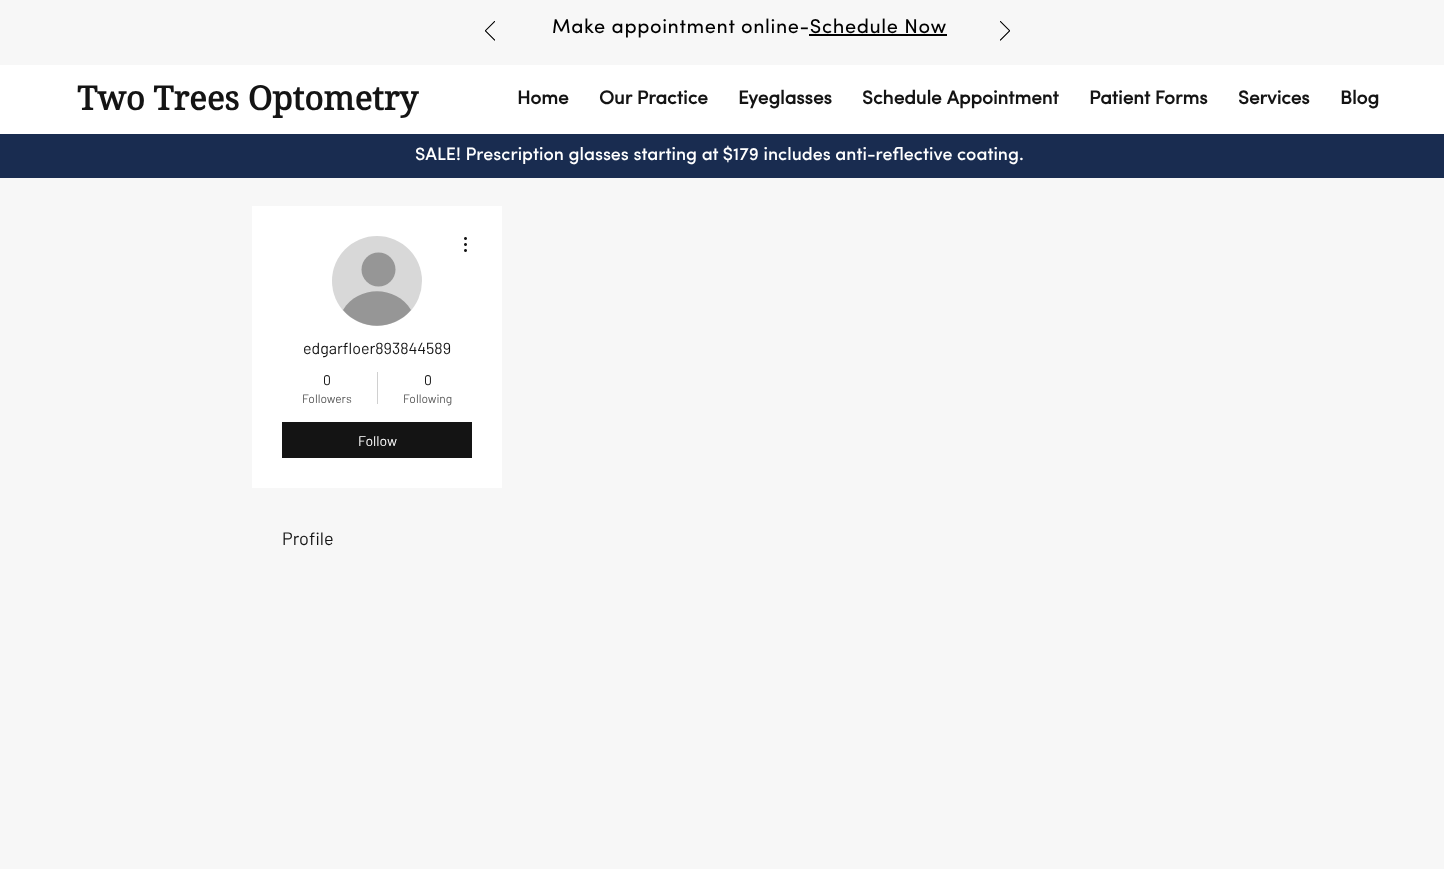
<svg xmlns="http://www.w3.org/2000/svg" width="1444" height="869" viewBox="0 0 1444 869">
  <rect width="100%" height="100%" fill="#f7f7f7"/>
  <image x="485" y="21" width="10" height="20" href="img1.png"/>
  <text x="552" y="33" font-family="Sofia" font-size="20" letter-spacing="0.6" fill="#000000">Make appointment online-Schedule Now</text>
  <rect x="809" y="34" width="138" height="2" fill="#000000"/>
  <image x="1000" y="21" width="10" height="20" href="img2.png"/>
  <rect x="0" y="65" width="1444" height="69" fill="#ffffff"/>
  <text x="77" y="110" font-family="'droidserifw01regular'" font-size="33" font-weight="bold" fill="#141414">Two Trees Optometry</text>
  <text x="517" y="104" font-family="Sofia" font-size="19" font-weight="bold" fill="#141414">Home</text>
  <text x="599" y="104" font-family="Sofia" font-size="19" font-weight="bold" fill="#141414">Our Practice</text>
  <text x="738" y="104" font-family="Sofia" font-size="19" font-weight="bold" fill="#141414">Eyeglasses</text>
  <text x="862" y="104" font-family="Sofia" font-size="19" font-weight="bold" fill="#141414">Schedule Appointment</text>
  <text x="1089" y="104" font-family="Sofia" font-size="19" font-weight="bold" fill="#141414">Patient Forms</text>
  <text x="1238" y="104" font-family="Sofia" font-size="19" font-weight="bold" fill="#141414">Services</text>
  <text x="1340" y="104" font-family="Sofia" font-size="19" font-weight="bold" fill="#141414">Blog</text>
  <rect x="0" y="134" width="1444" height="44" fill="#192c50"/>
  <text x="415" y="160" font-family="Sofia" font-size="18" font-weight="500" fill="#ffffff">SALE! Prescription glasses starting at $179 includes anti-reflective coating.</text>
  <rect x="252" y="206" width="250" height="282" fill="#ffffff"/>
  <circle cx="377" cy="281" r="45" fill="#d8d8d8"/>
  <circle cx="378.5" cy="269.5" r="17" fill="#969696"/>
  <path d="M411 310C393 331 361 331 343 310C358 285 396 285 411 310Z" fill="#969696"/>
  <image x="464" y="237" width="3" height="15" href="img3.png"/>
  <text x="303" y="354" font-family="Barlow" font-size="16" fill="#141414">edgarfloer893844589</text>
  <text x="323" y="385" font-family="Barlow" font-size="14" fill="#141414">0</text>
  <text x="302" y="403" font-family="Barlow" font-size="12" fill="#5b5b5b">Followers</text>
  <rect x="377" y="372" width="1" height="32" fill="#d0d0d0"/>
  <text x="424" y="385" font-family="Barlow" font-size="14" fill="#141414">0</text>
  <text x="403" y="403" font-family="Barlow" font-size="12" fill="#5b5b5b">Following</text>
  <rect x="282" y="422" width="190" height="36" fill="#141414"/>
  <text x="358" y="446" font-family="Barlow" font-size="14" fill="#ffffff">Follow</text>
  <text x="282" y="545" font-family="Barlow" font-size="18" fill="#141414">Profile</text>
</svg>
